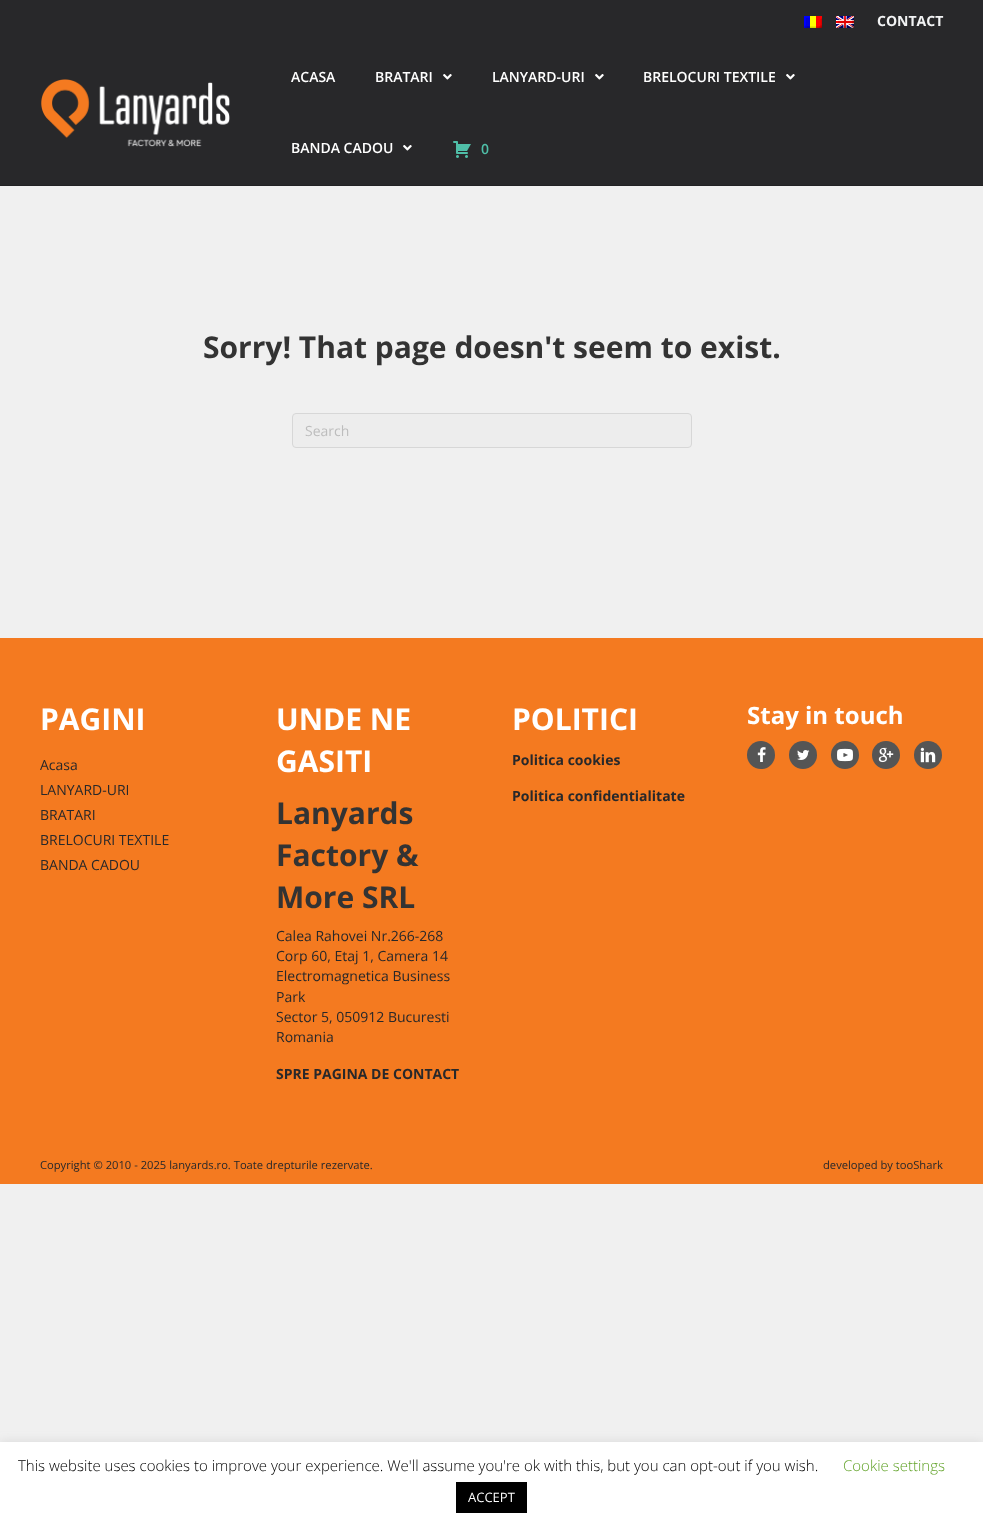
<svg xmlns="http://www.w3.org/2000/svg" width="983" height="1530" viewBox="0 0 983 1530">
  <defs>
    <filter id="blur1" x="-50%" y="-200%" width="200%" height="500%"><feGaussianBlur stdDeviation="5"/></filter>
  </defs>
  <rect width="100%" height="100%" fill="#f0f0f0"/>
  <rect x="0" y="0" width="983" height="185" fill="#28282a"/>
  <image x="804" y="16" width="18" height="12" href="img1.png"/>
  <image x="836" y="16" width="18" height="12" href="img2.png"/>
  <text x="877" y="26" font-family="Open Sans" font-size="14" font-weight="bold" fill="#f2f3f4">CONTACT</text>
  <rect x="0" y="185" width="983" height="1" fill="#222224"/>
  <image x="41" y="79" width="189" height="68" href="img3.png"/>
  <text x="291" y="82" font-family="Open Sans" font-size="14" font-weight="600" fill="#ffffff">ACASA</text>
  <text x="375" y="82" font-family="Open Sans" font-size="14" font-weight="600" fill="#ffffff">BRATARI</text>
  <image x="443" y="74" width="9" height="6" href="img4.png"/>
  <text x="492" y="82" font-family="Open Sans" font-size="14" font-weight="600" fill="#ffffff">LANYARD-URI</text>
  <image x="595" y="74" width="9" height="6" href="img4.png"/>
  <text x="643" y="82" font-family="Open Sans" font-size="14" font-weight="600" fill="#ffffff">BRELOCURI TEXTILE</text>
  <image x="786" y="74" width="9" height="6" href="img4.png"/>
  <text x="291" y="153" font-family="Open Sans" font-size="14" font-weight="600" fill="#ffffff">BANDA CADOU</text>
  <image x="403" y="145" width="9" height="6" href="img4.png"/>
  <image x="453" y="141" width="18" height="17" href="img5.png"/>
  <text x="481" y="154" font-family="Open Sans" font-size="14" font-weight="600" fill="#4fbfa8">0</text>
  <text x="203" y="358" font-family="Open Sans" font-size="30" font-weight="bold" fill="#333333">Sorry! That page doesn't seem to exist.</text>
  <rect x="292.5" y="413.5" width="399" height="34" rx="3.5" fill="#ededed" stroke="#d7d7d7"/>
  <text x="305" y="436" font-family="Open Sans" font-size="14" fill="#bdbdbd">Search</text>
  <rect x="0" y="638" width="983" height="546" fill="#f47a20"/>
  <text x="40" y="730" font-family="Open Sans" font-size="30" font-weight="bold" fill="#ffffff">PAGINI</text>
  <text x="40" y="770" font-family="Open Sans" font-size="14" fill="#28282a">Acasa</text>
  <text x="40" y="795" font-family="Open Sans" font-size="14" fill="#28282a">LANYARD-URI</text>
  <text x="40" y="820" font-family="Open Sans" font-size="14" fill="#28282a">BRATARI</text>
  <text x="40" y="845" font-family="Open Sans" font-size="14" fill="#28282a">BRELOCURI TEXTILE</text>
  <text x="40" y="870" font-family="Open Sans" font-size="14" fill="#28282a">BANDA CADOU</text>
  <text x="276" y="730" font-family="Open Sans" font-size="30" font-weight="bold" fill="#ffffff">UNDE NE</text>
  <text x="276" y="772" font-family="Open Sans" font-size="30" font-weight="bold" fill="#ffffff">GASITI</text>
  <text x="276" y="824" font-family="Open Sans" font-size="30" font-weight="bold" fill="#333333">Lanyards</text>
  <text x="276" y="866" font-family="Open Sans" font-size="30" font-weight="bold" fill="#333333">Factory &amp;</text>
  <text x="276" y="908" font-family="Open Sans" font-size="30" font-weight="bold" fill="#333333">More SRL</text>
  <text x="276" y="941" font-family="Open Sans" font-size="14" fill="#28282a">Calea Rahovei Nr.266-268</text>
  <text x="276" y="961" font-family="Open Sans" font-size="14" fill="#28282a">Corp 60, Etaj 1, Camera 14</text>
  <text x="276" y="981" font-family="Open Sans" font-size="14" fill="#28282a">Electromagnetica Business</text>
  <text x="276" y="1002" font-family="Open Sans" font-size="14" fill="#28282a">Park</text>
  <text x="276" y="1022" font-family="Open Sans" font-size="14" fill="#28282a">Sector 5, 050912 Bucuresti</text>
  <text x="276" y="1042" font-family="Open Sans" font-size="14" fill="#28282a">Romania</text>
  <text x="276" y="1079" font-family="Open Sans" font-size="14" font-weight="bold" fill="#28282a">SPRE PAGINA DE CONTACT</text>
  <text x="512" y="730" font-family="Open Sans" font-size="30" font-weight="bold" fill="#ffffff">POLITICI</text>
  <text x="512" y="765" font-family="Open Sans" font-size="14" font-weight="bold" fill="#28282a">Politica cookies</text>
  <text x="512" y="801" font-family="Open Sans" font-size="14" font-weight="bold" fill="#28282a">Politica confidentialitate</text>
  <text x="747" y="724" font-family="Open Sans" font-size="24" font-weight="bold" fill="#ffffff">Stay in touch</text>
  <circle cx="761" cy="755" r="14" fill="#555555"/>
  <image x="757" y="747" width="9" height="15" href="img6.png"/>
  <circle cx="803" cy="755" r="14" fill="#555555"/>
  <image x="797" y="750" width="13" height="10" href="img7.png"/>
  <circle cx="845" cy="755" r="14" fill="#555555"/>
  <image x="837" y="748" width="16" height="14" href="img8.png"/>
  <circle cx="886" cy="755" r="14" fill="#555555"/>
  <image x="878" y="747" width="16" height="16" href="img9.png"/>
  <circle cx="928" cy="755" r="14" fill="#555555"/>
  <image x="920" y="747" width="16" height="16" href="img10.png"/>
  <text x="40" y="1169" font-family="Open Sans" font-size="11.2" fill="#28282a">Copyright © 2010 - 2025 lanyards.ro. Toate drepturile rezervate.</text>
  <text x="823" y="1169" font-family="Open Sans" font-size="11.2" fill="#28282a">developed by tooShark</text>
  <rect x="0" y="1441" width="983" height="88" fill="#acabab" fill-opacity="0.3" filter="url(#blur1)"/>
  <rect x="0" y="1442" width="983" height="88" fill="#ffffff"/>
  <text x="18" y="1471" font-family="Open Sans" font-size="15" font-weight="300" fill="#000000">This website uses cookies to improve your experience. We'll assume you're ok with this, but you can opt-out if you wish.</text>
  <text x="843" y="1471" font-family="Open Sans" font-size="15" font-weight="300" fill="#62a329">Cookie settings</text>
  <rect x="456" y="1482" width="71" height="31" fill="#000000"/>
  <text x="468" y="1502" font-family="Open Sans" font-size="13" fill="#ffffff">ACCEPT</text>
</svg>
